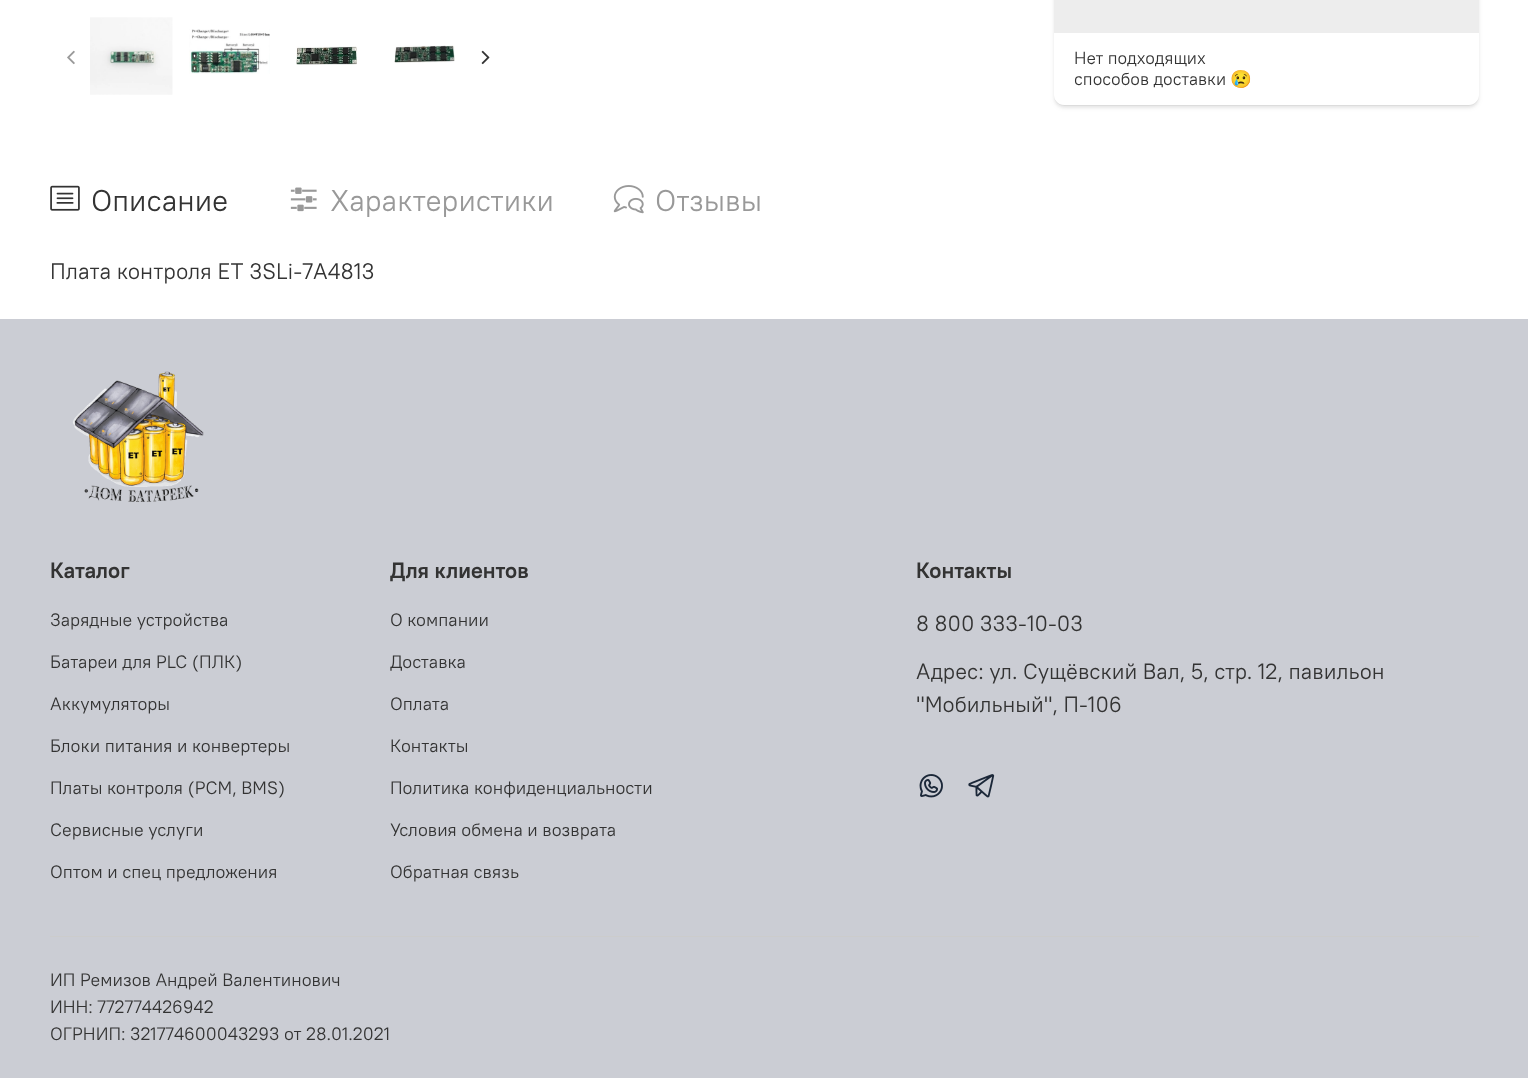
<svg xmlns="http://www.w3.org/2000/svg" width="1528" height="1078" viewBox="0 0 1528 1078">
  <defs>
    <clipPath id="clip1"><path d="M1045 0H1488V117H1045ZM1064-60H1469C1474.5-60 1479-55.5 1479-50V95C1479 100.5 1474.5 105 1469 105H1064C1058.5 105 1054 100.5 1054 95V-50C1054-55.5 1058.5-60 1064-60Z" clip-rule="evenodd"/></clipPath>
    <filter id="blur1" x="-50%" y="-200%" width="200%" height="500%"><feGaussianBlur stdDeviation="2.5"/></filter>
    <clipPath id="clip2"><path d="M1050 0H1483V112H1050ZM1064-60H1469C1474.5-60 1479-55.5 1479-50V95C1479 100.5 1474.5 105 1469 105H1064C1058.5 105 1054 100.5 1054 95V-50C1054-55.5 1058.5-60 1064-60Z" clip-rule="evenodd"/></clipPath>
    <filter id="blur2" x="-50%" y="-200%" width="200%" height="500%"><feGaussianBlur stdDeviation="1"/></filter>
    <clipPath id="clip3"><path d="M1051 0H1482V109H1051ZM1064-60H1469C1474.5-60 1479-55.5 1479-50V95C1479 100.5 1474.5 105 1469 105H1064C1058.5 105 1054 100.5 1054 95V-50C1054-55.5 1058.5-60 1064-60Z" clip-rule="evenodd"/></clipPath>
    <filter id="blur3" x="-50%" y="-200%" width="200%" height="500%"><feGaussianBlur stdDeviation="0.5"/></filter>
  </defs>
  <rect width="100%" height="100%" fill="#ffffff"/>
  <image x="90" y="17" width="83" height="78" href="img1.png"/>
  <image x="189" y="29" width="81" height="45" href="img2.png"/>
  <image x="296" y="46" width="61" height="19" href="img3.png"/>
  <image x="394" y="45" width="61" height="18" href="img4.png"/>
  <image x="67" y="50" width="8" height="15" href="img5.png"/>
  <image x="481" y="50" width="9" height="15" href="img6.png"/>
  <g clip-path="url(#clip1)">
    <rect x="1054" y="-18" width="425" height="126" rx="10" fill="#000000" fill-opacity="0.05" filter="url(#blur1)"/>
  </g>
  <g clip-path="url(#clip2)">
    <rect x="1054" y="-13" width="425" height="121" rx="10" fill="#000000" fill-opacity="0.05" filter="url(#blur2)"/>
  </g>
  <g clip-path="url(#clip3)">
    <rect x="1054" y="-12" width="425" height="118" rx="10" fill="#000000" fill-opacity="0.05" filter="url(#blur3)"/>
  </g>
  <rect x="1054" y="0" width="425" height="33" fill="#ededed"/>
  <text x="1074" y="64" font-family="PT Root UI" font-size="17.5" fill="#333333">Нет подходящих</text>
  <text x="1074" y="85" font-family="PT Root UI" font-size="17.5" fill="#333333">способов доставки</text>
  <text x="1230" y="85" font-family="Noto Color Emoji" font-size="17.5" fill="#333333">😢</text>
  <image x="50" y="185" width="30" height="26" href="img7.png"/>
  <text x="91" y="211" font-family="PT Root UI" font-size="30" fill="#333333">Описание</text>
  <image x="290" y="187" width="27" height="25" href="img8.png"/>
  <text x="330" y="211" font-family="PT Root UI" font-size="30" fill="#999999">Характеристики</text>
  <image x="613" y="185" width="31" height="29" href="img9.png"/>
  <text x="655" y="211" font-family="PT Root UI" font-size="30" fill="#999999">Отзывы</text>
  <text x="50" y="279" font-family="PT Root UI" font-size="22.5" fill="#333333">Плата контроля ET 3SLi-7A4813</text>
  <rect x="0" y="319" width="1528" height="759" fill="#cbcdd4"/>
  <image x="72" y="371" width="132" height="131" href="img10.png"/>
  <text x="50" y="578" font-family="PT Root UI" font-size="22" font-weight="bold" fill="#333333">Каталог</text>
  <text x="50" y="626" font-family="PT Root UI" font-size="18" fill="#333333">Зарядные устройства</text>
  <text x="50" y="668" font-family="PT Root UI" font-size="18" fill="#333333">Батареи для PLC (ПЛК)</text>
  <text x="50" y="710" font-family="PT Root UI" font-size="18" fill="#333333">Аккумуляторы</text>
  <text x="50" y="752" font-family="PT Root UI" font-size="18" fill="#333333">Блоки питания и конвертеры</text>
  <text x="50" y="794" font-family="PT Root UI" font-size="18" fill="#333333">Платы контроля (PCM, BMS)</text>
  <text x="50" y="836" font-family="PT Root UI" font-size="18" fill="#333333">Сервисные услуги</text>
  <text x="50" y="878" font-family="PT Root UI" font-size="18" fill="#333333">Оптом и спец предложения</text>
  <text x="390" y="578" font-family="PT Root UI" font-size="22" font-weight="bold" fill="#333333">Для клиентов</text>
  <text x="390" y="626" font-family="PT Root UI" font-size="18" fill="#333333">О компании</text>
  <text x="390" y="668" font-family="PT Root UI" font-size="18" fill="#333333">Доставка</text>
  <text x="390" y="710" font-family="PT Root UI" font-size="18" fill="#333333">Оплата</text>
  <text x="390" y="752" font-family="PT Root UI" font-size="18" fill="#333333">Контакты</text>
  <text x="390" y="794" font-family="PT Root UI" font-size="18" fill="#333333">Политика конфиденциальности</text>
  <text x="390" y="836" font-family="PT Root UI" font-size="18" fill="#333333">Условия обмена и возврата</text>
  <text x="390" y="878" font-family="PT Root UI" font-size="18" fill="#333333">Обратная связь</text>
  <text x="916" y="578" font-family="PT Root UI" font-size="22" font-weight="bold" fill="#333333">Контакты</text>
  <text x="916" y="631" font-family="PT Root UI" font-size="22" fill="#333333">8 800 333-10-03</text>
  <text x="916" y="679" font-family="PT Root UI" font-size="22" fill="#333333">Адрес: ул. Сущёвский Вал, 5, стр. 12, павильон</text>
  <text x="916" y="712" font-family="PT Root UI" font-size="22" fill="#333333">"Мобильный", П-106</text>
  <image x="919" y="774" width="24" height="24" href="img11.png"/>
  <image x="968" y="774" width="27" height="24" href="img12.png"/>
  <rect x="50" y="936" width="1429" height="1" fill="#cccccc"/>
  <text x="50" y="986" font-family="PT Root UI" font-size="18" fill="#333333">ИП Ремизов Андрей Валентинович</text>
  <text x="50" y="1013" font-family="PT Root UI" font-size="18" fill="#333333">ИНН: 772774426942</text>
  <text x="50" y="1040" font-family="PT Root UI" font-size="18" fill="#333333">ОГРНИП: 321774600043293 от 28.01.2021</text>
</svg>
